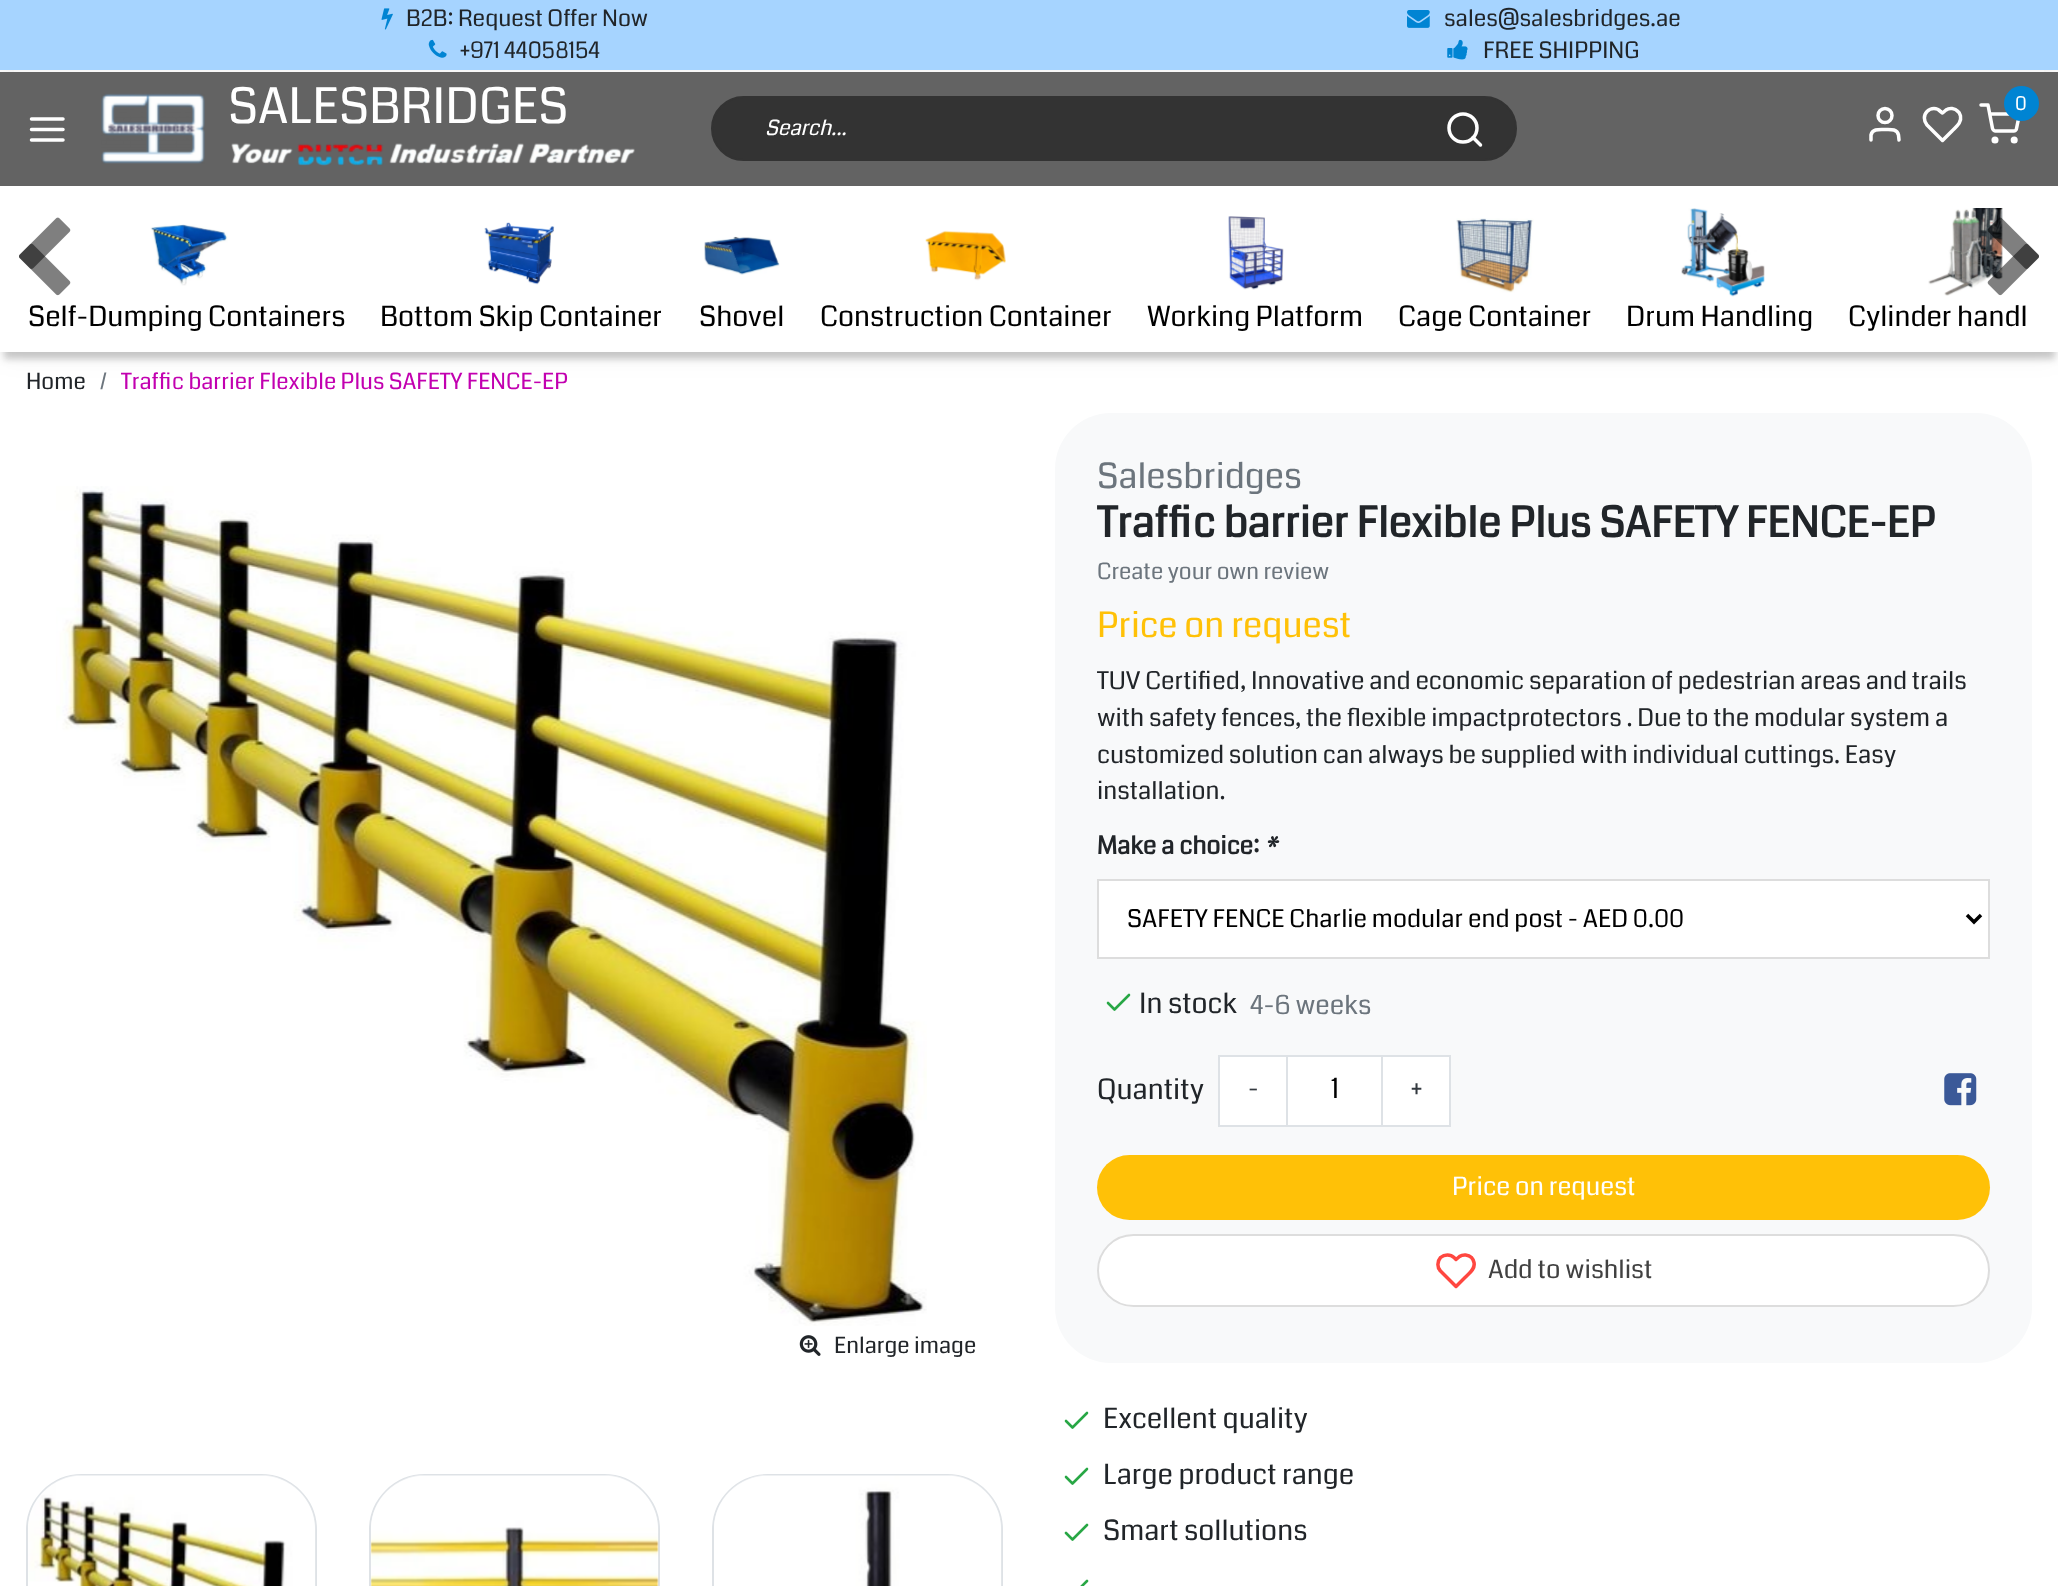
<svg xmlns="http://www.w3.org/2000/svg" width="2058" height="1586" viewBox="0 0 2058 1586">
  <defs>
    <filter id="blur1" x="-50%" y="-200%" width="200%" height="500%"><feGaussianBlur stdDeviation="14"/></filter>
    <filter id="blur2" x="-50%" y="-200%" width="200%" height="500%"><feGaussianBlur stdDeviation="3.5"/></filter>
  </defs>
  <rect width="100%" height="100%" fill="#ffffff"/>
  <rect x="0" y="4" width="2058" height="351" fill="#000000" fill-opacity="0.05" filter="url(#blur1)"/>
  <rect x="0" y="0" width="2058" height="70" fill="#a6d4ff"/>
  <rect x="14" y="70" width="2030" height="2" fill="#f7f7f7"/>
  <image x="381" y="8" width="12" height="22" href="img1.png"/>
  <text x="406" y="26" font-family="Coda" font-size="22.75" fill="#212529">B2B: Request Offer Now</text>
  <image x="1407" y="10" width="23" height="18" href="img2.png"/>
  <text x="1444" y="26" font-family="Coda" font-size="22.75" fill="#212529">sales@salesbridges.ae</text>
  <image x="428" y="39" width="19" height="19" href="img3.png"/>
  <text x="460" y="58" font-family="Coda" font-size="22.75" fill="#212529">+971 44058154</text>
  <image x="1447" y="39" width="21" height="21" href="img4.png"/>
  <text x="1483" y="58" font-family="Coda" font-size="22.75" fill="#212529">FREE SHIPPING</text>
  <rect x="0" y="72" width="2058" height="114" fill="#636363"/>
  <path d="M31.5 129.5H63M31.5 119H63M31.5 140H63" fill="none" stroke="#ffffff" stroke-width="3.5" stroke-linecap="round" stroke-linejoin="round"/>
  <image x="101" y="93" width="104" height="71" href="img5.png"/>
  <text x="228" y="123" font-family="Coda" font-size="49" fill="#ffffff">SALESBRIDGES</text>
  <image x="231" y="143" width="404" height="23" href="img6.png"/>
  <path d="M1981 105H1988L1992.5 128.5C1993 130 1994.5 131.5 1996 131H2013C2015 131.5 2016.5 130 2016.5 128.5L2019.5 114H1990" fill="none" stroke="#ffffff" stroke-width="3.5" stroke-linecap="round" stroke-linejoin="round"/>
  <circle cx="2021.5" cy="103.5" r="17.5" fill="#0084d3"/>
  <text x="2015" y="110" font-family="Coda" font-size="19" fill="#ffffff">0</text>
  <circle cx="1995" cy="140" r="1.8" fill="none" stroke="#ffffff" stroke-width="3.5"/>
  <circle cx="2014.2" cy="140" r="1.8" fill="none" stroke="#ffffff" stroke-width="3.5"/>
  <path d="M1899 140L1898.5 135C1897 128.5 1890 129.5 1885 129.5C1879.5 129.5 1872.5 128.5 1871 135V140" fill="none" stroke="#ffffff" stroke-width="3.5" stroke-linecap="round" stroke-linejoin="round"/>
  <circle cx="1885" cy="115.5" r="7" fill="none" stroke="#ffffff" stroke-width="3.5"/>
  <path d="M1958 111.5C1955 108 1949.5 107.5 1946 110L1942.5 113L1940.5 111.5C1937 107.5 1931 107.5 1927 111.5C1923.5 115 1923.5 121 1927 125L1942.5 140.5L1951.5 131.5C1955.5 127 1962 123 1960.5 116C1960 114.5 1959.5 112.5 1958 111.5Z" fill="none" stroke="#ffffff" stroke-width="3.5" stroke-linecap="round" stroke-linejoin="round"/>
  <rect x="712" y="97" width="804" height="63" rx="31.5" fill="#333333" stroke="#333333" stroke-width="2"/>
  <text x="765" y="135" font-family="Coda" font-size="21" font-style="italic" fill="#ffffff">Search...</text>
  <circle cx="1463" cy="128" r="14" fill="none" stroke="#ffffff" stroke-width="3.5"/>
  <path d="M1480.5 145L1473 137.5" fill="none" stroke="#ffffff" stroke-width="3.5" stroke-linecap="round" stroke-linejoin="round"/>
  <rect x="4" y="200" width="2051" height="159" fill="#000000" fill-opacity="0.2" filter="url(#blur2)"/>
  <rect x="0" y="186" width="2058" height="166" fill="#ffffff"/>
  <image x="19" y="217" width="52" height="79" href="img7.png"/>
  <image x="1928" y="208" width="75" height="88" href="img16.png"/>
  <image x="1987" y="217" width="52" height="79" href="img8.png"/>
  <image x="150" y="224" width="78" height="62" href="img9.png"/>
  <text x="28" y="326" font-family="Coda" font-size="28" fill="#000000">Self-Dumping Containers</text>
  <image x="484" y="222" width="71" height="63" href="img10.png"/>
  <text x="380" y="326" font-family="Coda" font-size="28" fill="#000000">Bottom Skip Container</text>
  <image x="704" y="236" width="76" height="39" href="img11.png"/>
  <text x="699" y="326" font-family="Coda" font-size="28" fill="#000000">Shovel</text>
  <image x="925" y="230" width="81" height="51" href="img12.png"/>
  <text x="820" y="326" font-family="Coda" font-size="28" fill="#000000">Construction Container</text>
  <image x="1228" y="216" width="56" height="74" href="img13.png"/>
  <text x="1147" y="326" font-family="Coda" font-size="28" fill="#000000">Working Platform</text>
  <image x="1456" y="218" width="78" height="75" href="img14.png"/>
  <text x="1398" y="326" font-family="Coda" font-size="28" fill="#000000">Cage Container</text>
  <image x="1681" y="208" width="84" height="89" href="img15.png"/>
  <text x="1626" y="326" font-family="Coda" font-size="28" fill="#000000">Drum Handling</text>
  <text x="1848" y="326" font-family="Coda" font-size="28" fill="#000000">Cylinder handl</text>
  <text x="26" y="389" font-family="Coda" font-size="22.4" fill="#212529">Home</text>
  <text x="100" y="389" font-family="Coda" font-size="22.4" fill="#6c757d">/</text>
  <text x="121" y="389" font-family="Coda" font-size="22.4" fill="#c200b0">Traffic barrier Flexible Plus SAFETY FENCE-EP</text>
  <image x="56" y="486" width="871" height="840" href="img17.png"/>
  <image x="799" y="1335" width="22" height="21" href="img18.png"/>
  <text x="834" y="1353" font-family="Coda" font-size="22.4" fill="#212529">Enlarge image</text>
  <rect x="27" y="1475" width="289" height="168" rx="55" fill="none" stroke="#dee2e6" stroke-width="2"/>
  <image x="28" y="1475" width="288" height="111" href="img19.png"/>
  <rect x="370" y="1475" width="289" height="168" rx="55" fill="none" stroke="#dee2e6" stroke-width="2"/>
  <image x="370" y="1475" width="289" height="111" href="img20.png"/>
  <rect x="713" y="1475" width="289" height="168" rx="55" fill="none" stroke="#dee2e6" stroke-width="2"/>
  <image x="714" y="1475" width="288" height="111" href="img21.png"/>
  <rect x="1055" y="413" width="977" height="950" rx="56" fill="#f8f9fa"/>
  <text x="1097" y="488" font-family="Coda" font-size="35" fill="#6c757d">Salesbridges</text>
  <text x="1097" y="537" font-family="Coda" font-size="42" font-weight="bold" fill="#212529">Traffic barrier Flexible Plus SAFETY FENCE-EP</text>
  <text x="1097" y="579" font-family="Coda" font-size="22.4" fill="#6c757d">Create your own review</text>
  <text x="1097" y="637" font-family="Coda" font-size="35" fill="#ffc107">Price on request</text>
  <text x="1097" y="689" font-family="Coda" font-size="24.5" fill="#212529">TUV Certified, Innovative and economic separation of pedestrian areas and trails</text>
  <text x="1097" y="726" font-family="Coda" font-size="24.5" fill="#212529">with safety fences, the flexible impactprotectors . Due to the modular system a</text>
  <text x="1097" y="763" font-family="Coda" font-size="24.5" fill="#212529">customized solution can always be supplied with individual cuttings. Easy</text>
  <text x="1097" y="799" font-family="Coda" font-size="24.5" fill="#212529">installation.</text>
  <text x="1097" y="854" font-family="Coda" font-size="24.5" font-weight="bold" fill="#212529">Make a choice:</text>
  <text x="1264" y="854" font-family="Coda" font-size="24.5" font-weight="bold" font-style="italic" fill="#212529">*</text>
  <rect x="1098" y="880" width="891" height="78" fill="#ffffff" stroke="#dddddd" stroke-width="2"/>
  <path d="M1967 915L1974 922L1981 915" fill="none" stroke="#000000" stroke-width="3.5"/>
  <text x="1127" y="927" font-family="Coda" font-size="24.5" fill="#000000">SAFETY FENCE Charlie modular end post - AED 0.00</text>
  <path d="M1129 995L1114.5 1009.5L1108 1003" fill="none" stroke="#28a745" stroke-width="2.6" stroke-linecap="round" stroke-linejoin="round"/>
  <text x="1139" y="1013" font-family="Coda" font-size="28" fill="#212529">In stock</text>
  <text x="1250" y="1014" font-family="Coda" font-size="26.25" fill="#6c757d">4-6 weeks</text>
  <text x="1097" y="1099" font-family="Coda" font-size="28" fill="#212529">Quantity</text>
  <rect x="1219" y="1056" width="231" height="70" fill="#ffffff" stroke="#dee2e6" stroke-width="2"/>
  <rect x="1286" y="1057" width="2" height="68" fill="#dee2e6"/>
  <text x="1248" y="1097" font-family="Coda" font-size="25.25" fill="#343a40">-</text>
  <text x="1331" y="1098" font-family="Coda" font-size="28" fill="#000000">1</text>
  <rect x="1381" y="1057" width="2" height="68" fill="#dee2e6"/>
  <text x="1411" y="1097" font-family="Coda" font-size="25.25" fill="#343a40">+</text>
  <image x="1944" y="1073" width="33" height="33" href="img22.png"/>
  <rect x="1097" y="1155" width="893" height="65" rx="32.5" fill="#ffc107"/>
  <text x="1452" y="1195" font-family="Coda" font-size="25.25" fill="#ffffff">Price on request</text>
  <rect x="1098" y="1235" width="891" height="71" rx="35.5" fill="#ffffff" stroke="#dddddd" stroke-width="2"/>
  <path d="M1471.5 1257.5C1468.5 1254.5 1463 1254 1459.5 1256.5L1456 1259.5L1454 1257.5C1450.5 1254 1444.5 1254 1440.5 1257.5C1437 1261.5 1437 1267.5 1440.5 1271L1456 1286.5L1465 1277.5C1469 1273.5 1475.5 1269 1474 1262.5C1473.5 1260.5 1473 1259 1471.5 1257.5Z" fill="none" stroke="#ff4740" stroke-width="3.5" stroke-linecap="round" stroke-linejoin="round"/>
  <text x="1488" y="1278" font-family="Coda" font-size="25.25" fill="#414141">Add to wishlist</text>
  <path d="M1087 1413L1072.5 1427.5L1066 1421" fill="none" stroke="#28a745" stroke-width="2.6" stroke-linecap="round" stroke-linejoin="round"/>
  <text x="1103" y="1428" font-family="Coda" font-size="28" fill="#212529">Excellent quality</text>
  <path d="M1087 1469L1072.5 1483.5L1066 1477" fill="none" stroke="#28a745" stroke-width="2.6" stroke-linecap="round" stroke-linejoin="round"/>
  <text x="1103" y="1484" font-family="Coda" font-size="28" fill="#212529">Large product range</text>
  <path d="M1087 1525L1072.5 1539.5L1066 1533M1087 1581L1072.5 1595.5L1066 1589" fill="none" stroke="#28a745" stroke-width="2.6" stroke-linecap="round" stroke-linejoin="round"/>
  <text x="1103" y="1540" font-family="Coda" font-size="28" fill="#212529">Smart sollutions</text>
</svg>
